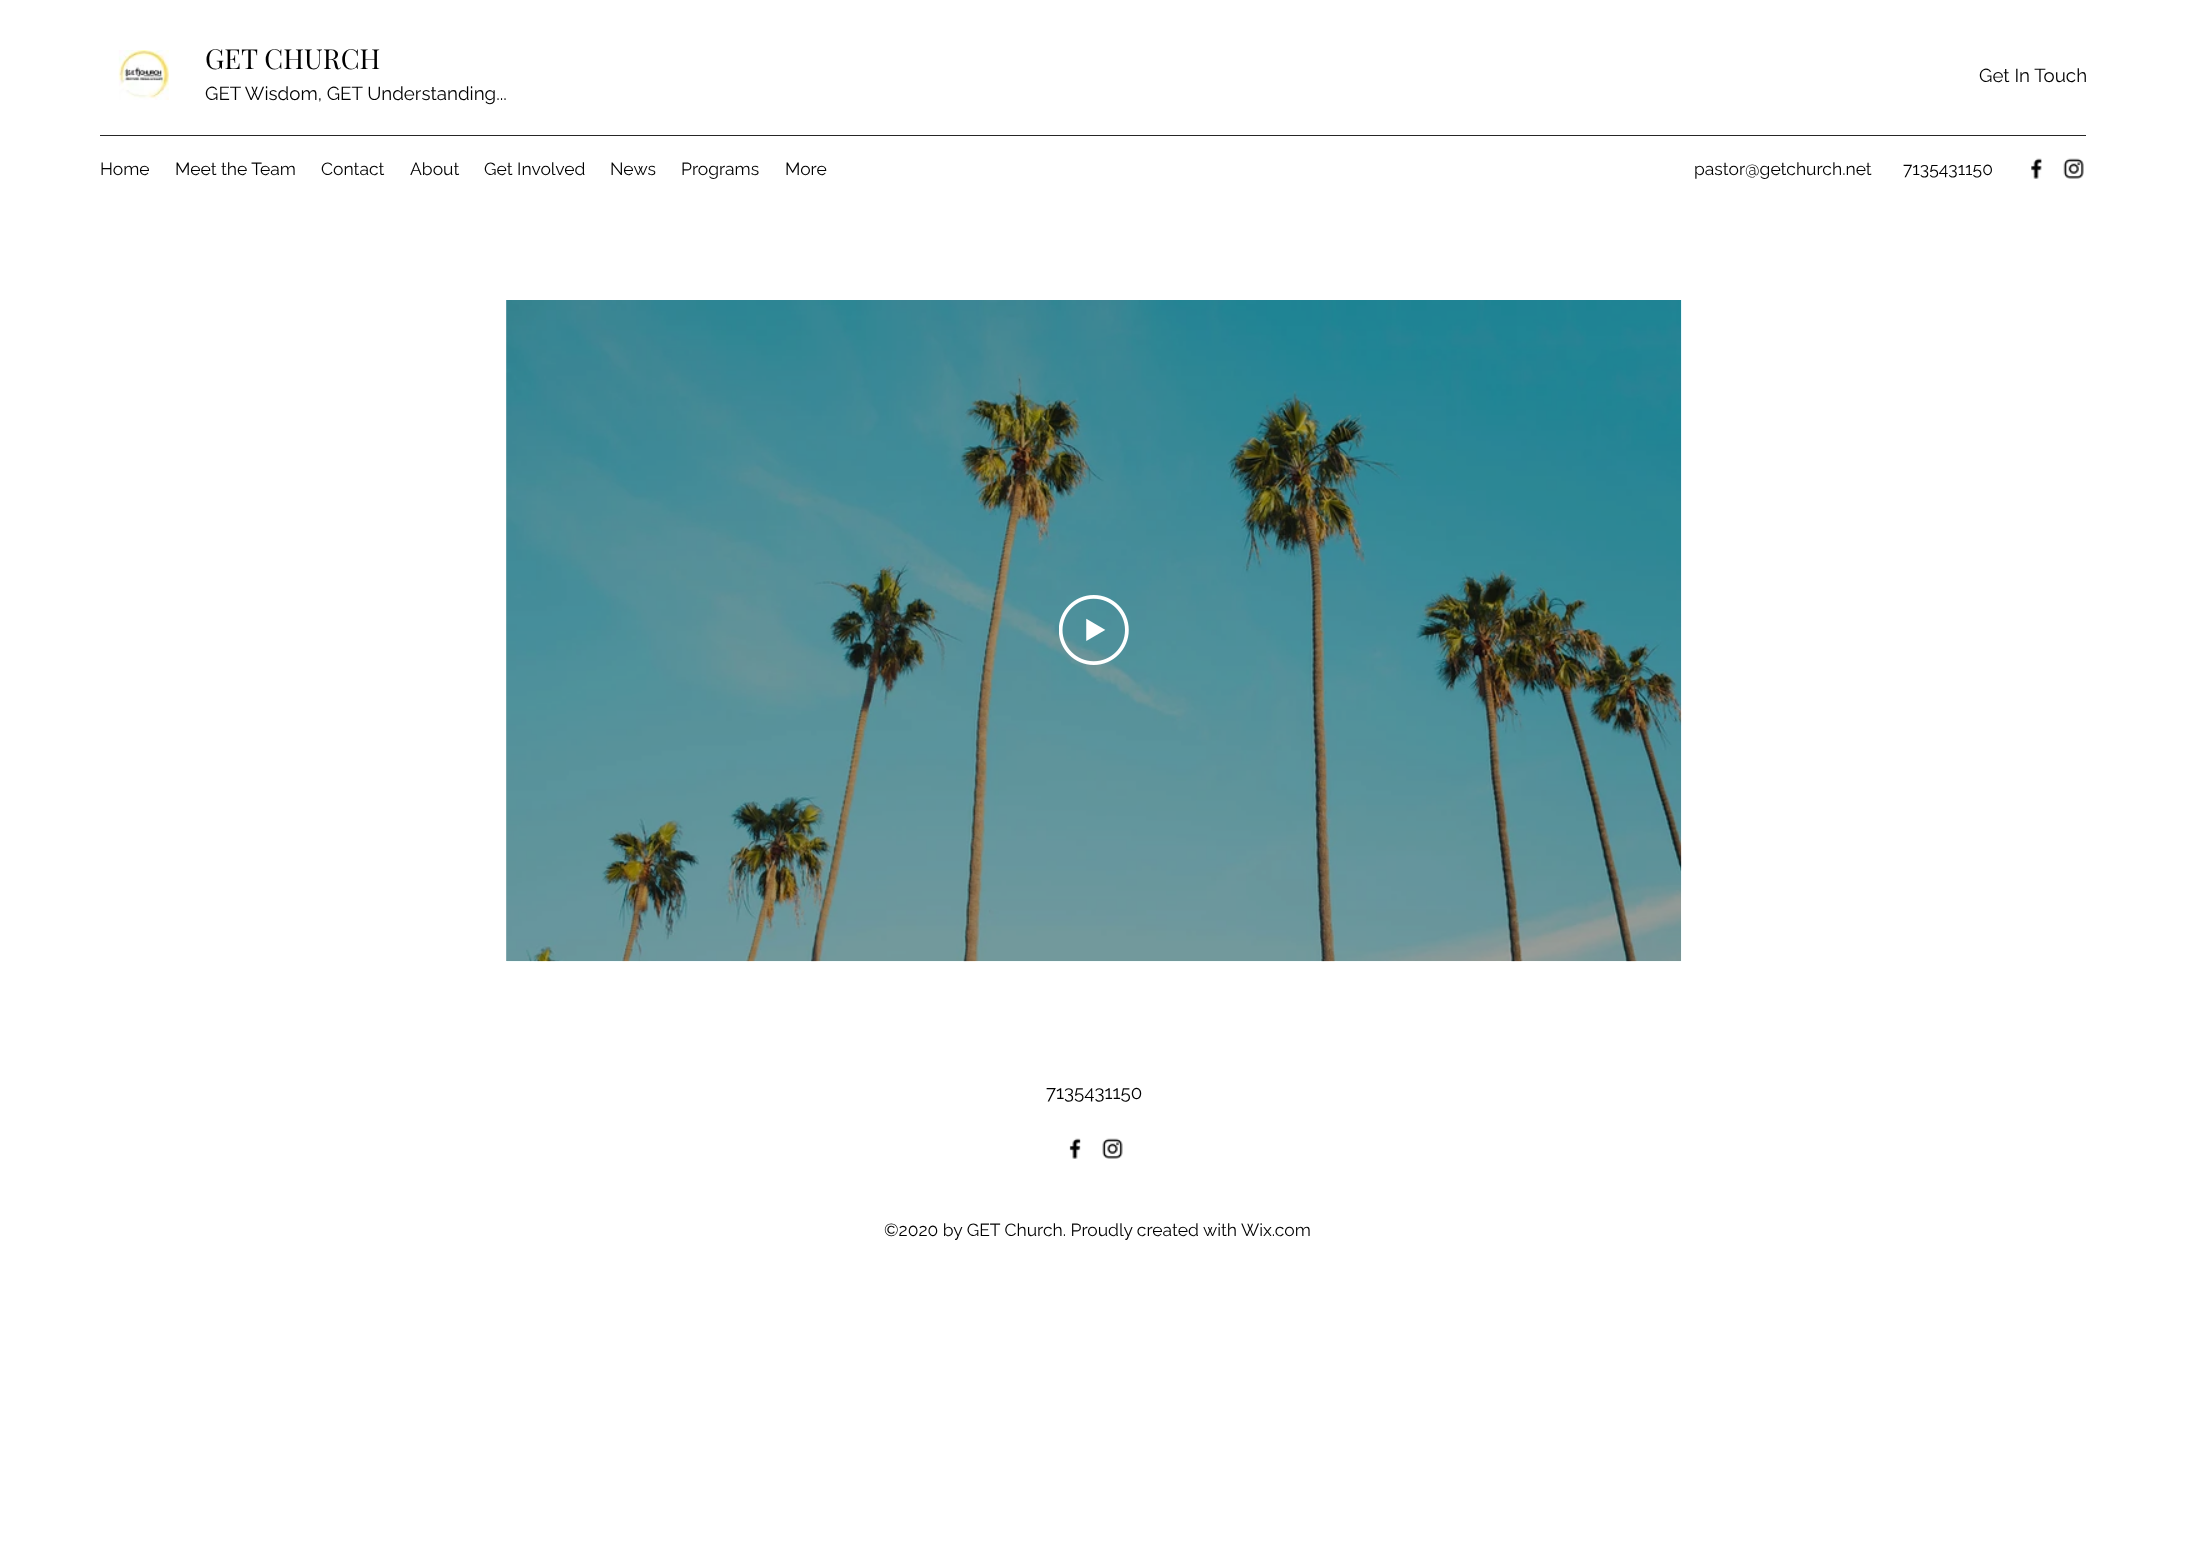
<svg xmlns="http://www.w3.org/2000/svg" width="2186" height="1547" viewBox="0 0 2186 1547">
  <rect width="100%" height="100%" fill="#ffffff"/>
  <image x="118" y="50" width="51" height="50" href="img1.png"/>
  <text x="205" y="69" font-family="Playfair Display" font-size="27.5" fill="#000000">GET CHURCH</text>
  <text x="205" y="100" font-family="Raleway" font-size="18.75" fill="#000000">GET Wisdom, GET Understanding...</text>
  <text x="1979" y="82" font-family="Raleway" font-size="18.75" fill="#000000">Get In Touch</text>
  <rect x="100" y="135" width="1986" height="1" fill="#262626"/>
  <text x="100" y="175" font-family="Raleway" font-size="17.5" fill="#000000">Home</text>
  <text x="175" y="175" font-family="Raleway" font-size="17.5" fill="#000000">Meet the Team</text>
  <text x="321" y="175" font-family="Raleway" font-size="17.5" fill="#000000">Contact</text>
  <text x="410" y="175" font-family="Raleway" font-size="17.5" fill="#000000">About</text>
  <text x="484" y="175" font-family="Raleway" font-size="17.5" fill="#000000">Get Involved</text>
  <text x="610" y="175" font-family="Raleway" font-size="17.5" fill="#000000">News</text>
  <text x="681" y="175" font-family="Raleway" font-size="17.5" fill="#000000">Programs</text>
  <text x="785" y="175" font-family="Raleway" font-size="17.5" fill="#000000">More</text>
  <text x="1694" y="175" font-family="Raleway" font-size="17.5" fill="#000000">pastor@getchurch.net</text>
  <text x="1903" y="175" font-family="Raleway" font-size="17.5" fill="#000000">7135431150</text>
  <image x="2031" y="158" width="11" height="21" href="img2.png"/>
  <image x="2063" y="158" width="21" height="21" href="img3.png"/>
  <image x="506" y="300" width="1176" height="662" href="img4.png"/>
  <image x="506" y="300" width="1176" height="662" href="img5.png"/>
  <image x="1059" y="595" width="70" height="70" href="img6.png"/>
  <text x="1046" y="1099" font-family="Raleway" font-size="18.75" fill="#000000">7135431150</text>
  <image x="1069" y="1138" width="12" height="21" href="img7.png"/>
  <image x="1102" y="1138" width="21" height="21" href="img8.png"/>
  <text x="884" y="1236" font-family="Raleway" font-size="17.5" fill="#000000">©2020 by GET Church. Proudly created with Wix.com</text>
</svg>
